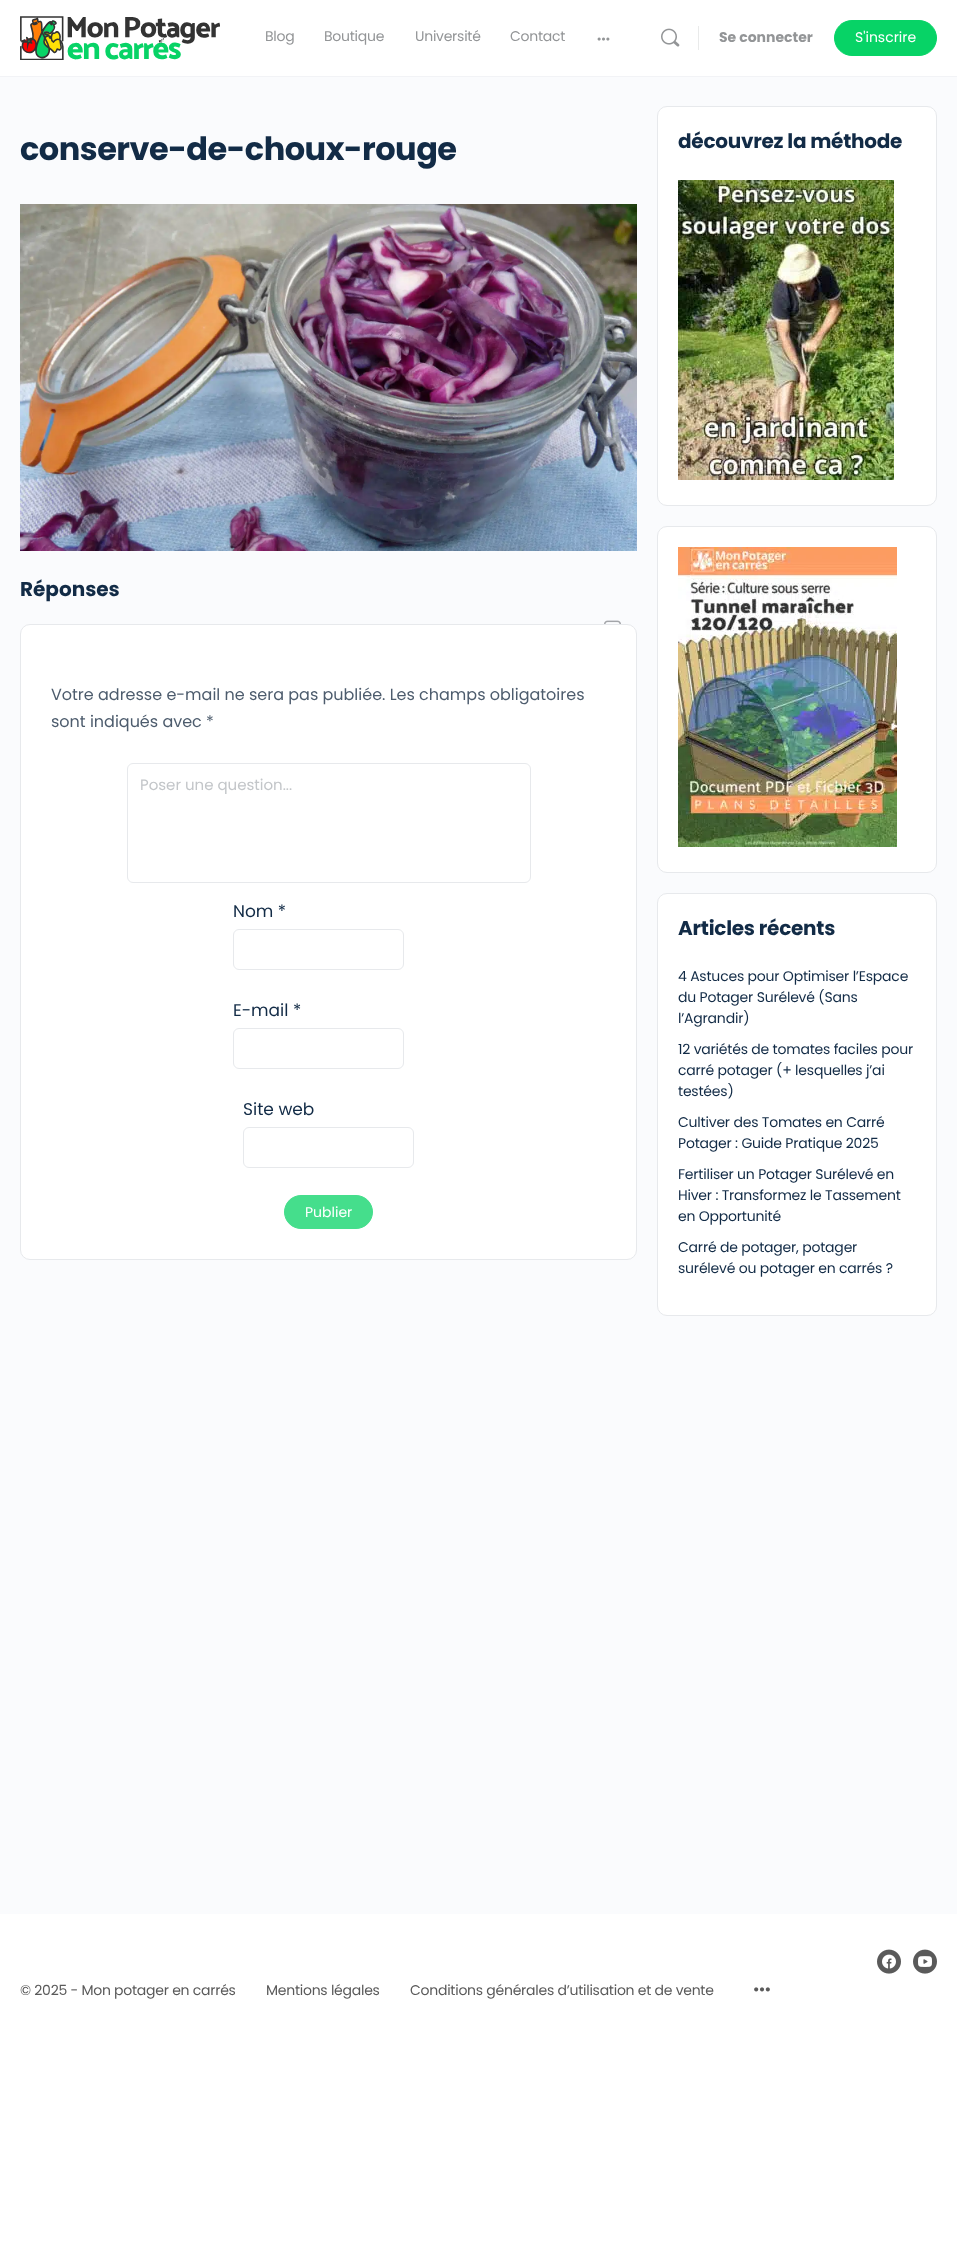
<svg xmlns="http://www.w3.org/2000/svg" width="957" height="2252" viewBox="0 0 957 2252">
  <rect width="100%" height="100%" fill="#fafbfd"/>
  <rect x="0" y="76" width="957" height="1" fill="#f2f3f6"/>
  <rect x="0" y="0" width="957" height="76" fill="#ffffff"/>
  <image x="20" y="16" width="200" height="44" href="img1.png"/>
  <text x="265" y="41" font-family="Poppins" font-size="14" letter-spacing="-0.25" fill="#939597">Blog</text>
  <text x="324" y="41" font-family="Poppins" font-size="14" letter-spacing="-0.25" fill="#939597">Boutique</text>
  <text x="415" y="41" font-family="Poppins" font-size="14" letter-spacing="-0.25" fill="#939597">Université</text>
  <text x="510" y="41" font-family="Poppins" font-size="14" letter-spacing="-0.25" fill="#939597">Contact</text>
  <image x="597" y="37" width="13" height="4" href="img2.png"/>
  <image x="661" y="28" width="19" height="19" href="img3.png"/>
  <rect x="698" y="26" width="1" height="24" fill="#e9eaea"/>
  <text x="719" y="42" font-family="Poppins" font-size="14" font-weight="bold" fill="#939597">Se connecter</text>
  <rect x="834.5" y="20.5" width="102" height="35" rx="17.5" fill="#07d366" stroke="#07d366"/>
  <text x="855" y="42" font-family="Poppins" font-size="14" fill="#ffffff">S'inscrire</text>
  <text x="20" y="160" font-family="Poppins" font-size="32" font-weight="bold" letter-spacing="-0.5" fill="#122b46">conserve-de-choux-rouge</text>
  <image x="20" y="204" width="617" height="347" href="img4.png"/>
  <text x="20" y="596" font-family="Poppins" font-size="20" font-weight="bold" fill="#122b46">Réponses</text>
  <rect x="20.5" y="624.5" width="616" height="635" rx="9.5" fill="#ffffff" stroke="#e7e9ec"/>
  <text x="51" y="700" font-family="Poppins" font-size="16" fill="#4d5c6d">Votre adresse e-mail ne sera pas publiée. Les champs obligatoires</text>
  <text x="51" y="727" font-family="Poppins" font-size="16" fill="#4d5c6d">sont indiqués avec *</text>
  <rect x="127.5" y="763.5" width="403" height="119" rx="5.5" fill="none" stroke="#e7e9ec"/>
  <text x="140" y="790" font-family="Poppins" font-size="15" fill="#c3c6c9">Poser une question...</text>
  <text x="233" y="917" font-family="Poppins" font-size="17" fill="#122b46">Nom *</text>
  <rect x="233.5" y="929.5" width="170" height="40" rx="5.5" fill="none" stroke="#e7e9ec"/>
  <text x="233" y="1016" font-family="Poppins" font-size="17" fill="#122b46">E-mail *</text>
  <rect x="233.5" y="1028.5" width="170" height="40" rx="5.5" fill="none" stroke="#e7e9ec"/>
  <text x="243" y="1115" font-family="Poppins" font-size="17" fill="#122b46">Site web</text>
  <rect x="243.5" y="1127.5" width="170" height="40" rx="5.5" fill="none" stroke="#e7e9ec"/>
  <rect x="284.5" y="1195.5" width="88" height="33" rx="16.5" fill="#45de8c" stroke="#45de8c"/>
  <text x="305" y="1217" font-family="Poppins" font-size="14" fill="#ffffff">Publier</text>
  <image x="604" y="620" width="17" height="4" href="img5.png"/>
  <rect x="657.5" y="106.5" width="279" height="399" rx="9.5" fill="#ffffff" stroke="#e7e9ec"/>
  <text x="678" y="148" font-family="Poppins" font-size="20" font-weight="bold" letter-spacing="-0.25" fill="#122b46">découvrez la méthode</text>
  <image x="678" y="180" width="216" height="300" href="img6.png"/>
  <rect x="657.5" y="526.5" width="279" height="346" rx="9.5" fill="#ffffff" stroke="#e7e9ec"/>
  <image x="678" y="547" width="219" height="300" href="img7.png"/>
  <rect x="657.5" y="893.5" width="279" height="422" rx="9.5" fill="#ffffff" stroke="#e7e9ec"/>
  <text x="678" y="935" font-family="Poppins" font-size="20" font-weight="bold" letter-spacing="-0.25" fill="#122b46">Articles récents</text>
  <text x="678" y="981" font-family="Poppins" font-size="14" letter-spacing="-0.2" fill="#122b46">4 Astuces pour Optimiser l’Espace</text>
  <text x="678" y="1002" font-family="Poppins" font-size="14" letter-spacing="-0.2" fill="#122b46">du Potager Surélevé (Sans</text>
  <text x="678" y="1023" font-family="Poppins" font-size="14" letter-spacing="-0.2" fill="#122b46">l’Agrandir)</text>
  <text x="678" y="1054" font-family="Poppins" font-size="14" letter-spacing="-0.2" fill="#122b46">12 variétés de tomates faciles pour</text>
  <text x="678" y="1075" font-family="Poppins" font-size="14" letter-spacing="-0.2" fill="#122b46">carré potager (+ lesquelles j’ai</text>
  <text x="678" y="1096" font-family="Poppins" font-size="14" letter-spacing="-0.2" fill="#122b46">testées)</text>
  <text x="678" y="1127" font-family="Poppins" font-size="14" letter-spacing="-0.2" fill="#122b46">Cultiver des Tomates en Carré</text>
  <text x="678" y="1148" font-family="Poppins" font-size="14" letter-spacing="-0.2" fill="#122b46">Potager : Guide Pratique 2025</text>
  <text x="678" y="1179" font-family="Poppins" font-size="14" letter-spacing="-0.2" fill="#122b46">Fertiliser un Potager Surélevé en</text>
  <text x="678" y="1200" font-family="Poppins" font-size="14" letter-spacing="-0.2" fill="#122b46">Hiver : Transformez le Tassement</text>
  <text x="678" y="1221" font-family="Poppins" font-size="14" letter-spacing="-0.2" fill="#122b46">en Opportunité</text>
  <text x="678" y="1252" font-family="Poppins" font-size="14" letter-spacing="-0.2" fill="#122b46">Carré de potager, potager</text>
  <text x="678" y="1273" font-family="Poppins" font-size="14" letter-spacing="-0.2" fill="#122b46">surélevé ou potager en carrés ?</text>
  <rect x="0" y="1914" width="957" height="338" fill="#ffffff"/>
  <image x="877" y="1949" width="24" height="25" href="img8.png"/>
  <image x="913" y="1949" width="24" height="25" href="img9.png"/>
  <text x="20" y="1995" font-family="Poppins" font-size="14" letter-spacing="-0.25" fill="#5a5a5a">© 2025 - Mon potager en carrés</text>
  <text x="266" y="1995" font-family="Poppins" font-size="14" letter-spacing="-0.25" fill="#5a5a5a">Mentions légales</text>
  <text x="410" y="1995" font-family="Poppins" font-size="14" letter-spacing="-0.25" fill="#5a5a5a">Conditions générales d’utilisation et de vente</text>
  <image x="754" y="1987" width="16" height="5" href="img10.png"/>
</svg>
